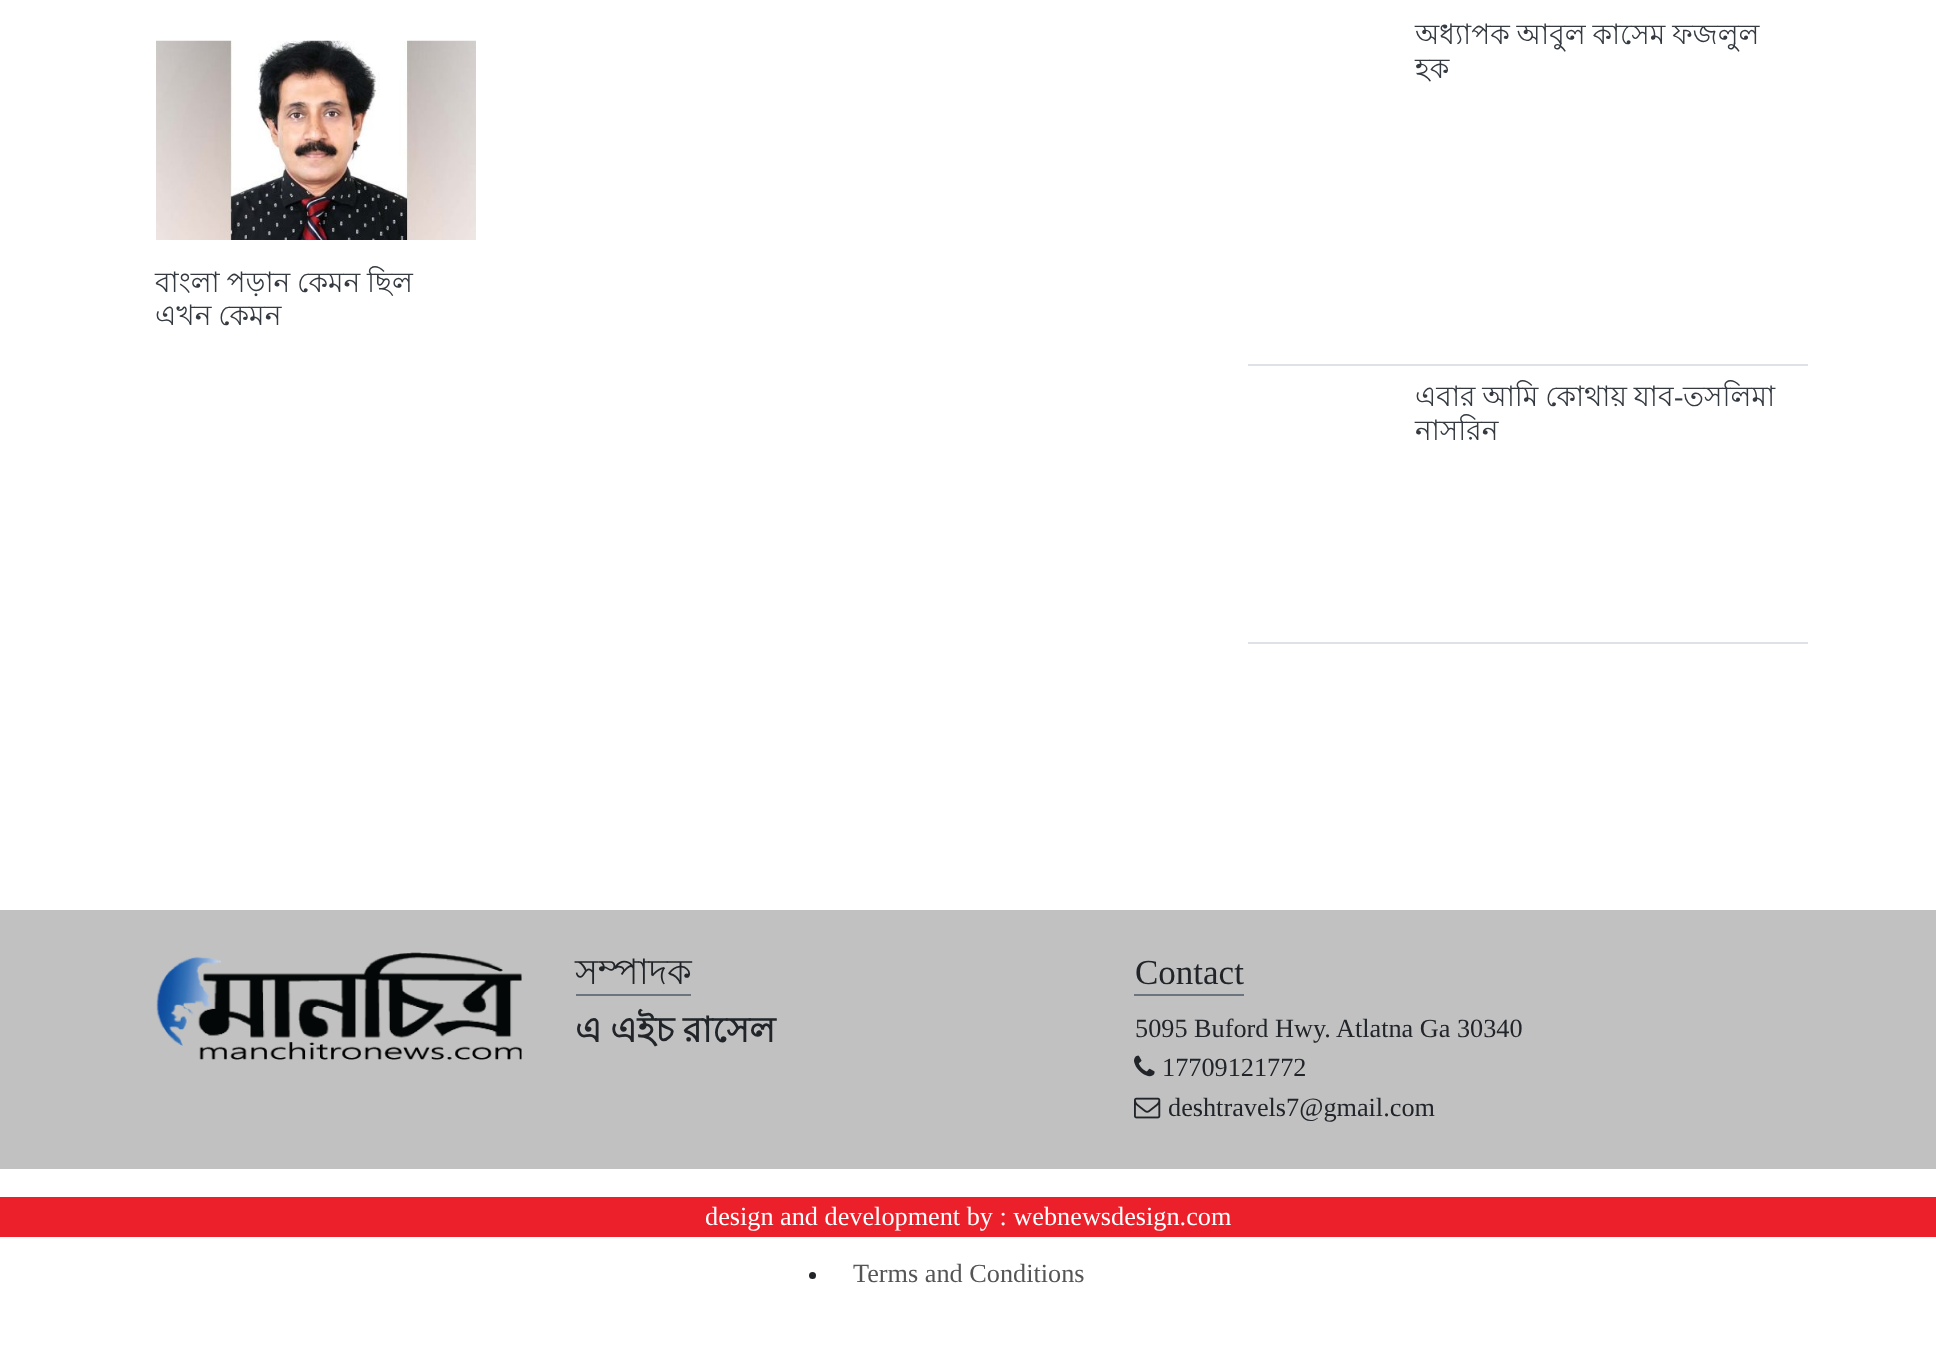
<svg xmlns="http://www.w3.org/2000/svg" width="1936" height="1366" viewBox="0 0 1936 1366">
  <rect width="100%" height="100%" fill="#ffffff"/>
  <image x="156" y="40" width="320" height="200" href="img1.png"/>
  <text x="155" y="292" word-spacing="-1" font-family="Lohit Bengali" font-size="28" fill="#343a40">বাংলা পড়ান কেমন ছিল</text>
  <text x="155" y="325" word-spacing="-1" font-family="Lohit Bengali" font-size="28" fill="#343a40">এখন কেমন</text>
  <rect x="1248" y="364" width="560" height="2" fill="#dee2e6"/>
  <text x="1415" y="44" word-spacing="-1" font-family="Lohit Bengali" font-size="28" fill="#343a40">অধ্যাপক আবুল কাসেম ফজলুল</text>
  <text x="1415" y="78" font-family="Lohit Bengali" font-size="28" fill="#343a40">হক</text>
  <rect x="1248" y="642" width="560" height="2" fill="#dee2e6"/>
  <text x="1415" y="406" word-spacing="-1" font-family="Lohit Bengali" font-size="28" fill="#343a40">এবার আমি কোথায় যাব</text>
  <text x="1674" y="406" font-family="Liberation Serif" font-size="28" fill="#343a40">-</text>
  <text x="1683" y="406" font-family="Lohit Bengali" font-size="28" fill="#343a40">তসলিমা</text>
  <text x="1415" y="440" font-family="Lohit Bengali" font-size="28" fill="#343a40">নাসরিন</text>
  <rect x="0" y="910" width="1936" height="259" fill="#c1c1c1"/>
  <image x="156" y="952" width="366" height="108" href="img2.png"/>
  <rect x="576" y="994" width="115" height="2" fill="#6c757d"/>
  <text x="575" y="984" font-family="Lohit Bengali" font-size="35" fill="#212529">সম্পাদক</text>
  <text x="575" y="1042" word-spacing="-1" font-family="Lohit Bengali" font-size="35" font-weight="bold" fill="#212529">এ এইচ রাসেল</text>
  <rect x="1134" y="994" width="110" height="2" fill="#6c757d"/>
  <text x="1135" y="984" font-family="Liberation Serif" font-size="35" fill="#212529">Contact</text>
  <text x="1135" y="1037" font-family="Liberation Serif" font-size="26.25" fill="#212529">5095 Buford Hwy. Atlatna Ga 30340</text>
  <image x="1134" y="1055" width="21" height="22" href="img3.png"/>
  <text x="1162" y="1076" font-family="Liberation Serif" font-size="26.25" fill="#212529">17709121772</text>
  <image x="1134" y="1097" width="27" height="22" href="img4.png"/>
  <text x="1168" y="1116" font-family="Liberation Serif" font-size="26.25" fill="#212529">deshtravels7@gmail.com</text>
  <rect x="0" y="1197" width="1936" height="40" fill="#ec202a"/>
  <text x="705" y="1225" font-family="Liberation Serif" font-size="26.25" fill="#ffffff">design and development by : webnewsdesign.com</text>
  <circle cx="812.5" cy="1275.5" r="3.5" fill="#212529"/>
  <text x="853" y="1282" font-family="Liberation Serif" font-size="26.25" fill="#555555">Terms and Conditions</text>
</svg>
